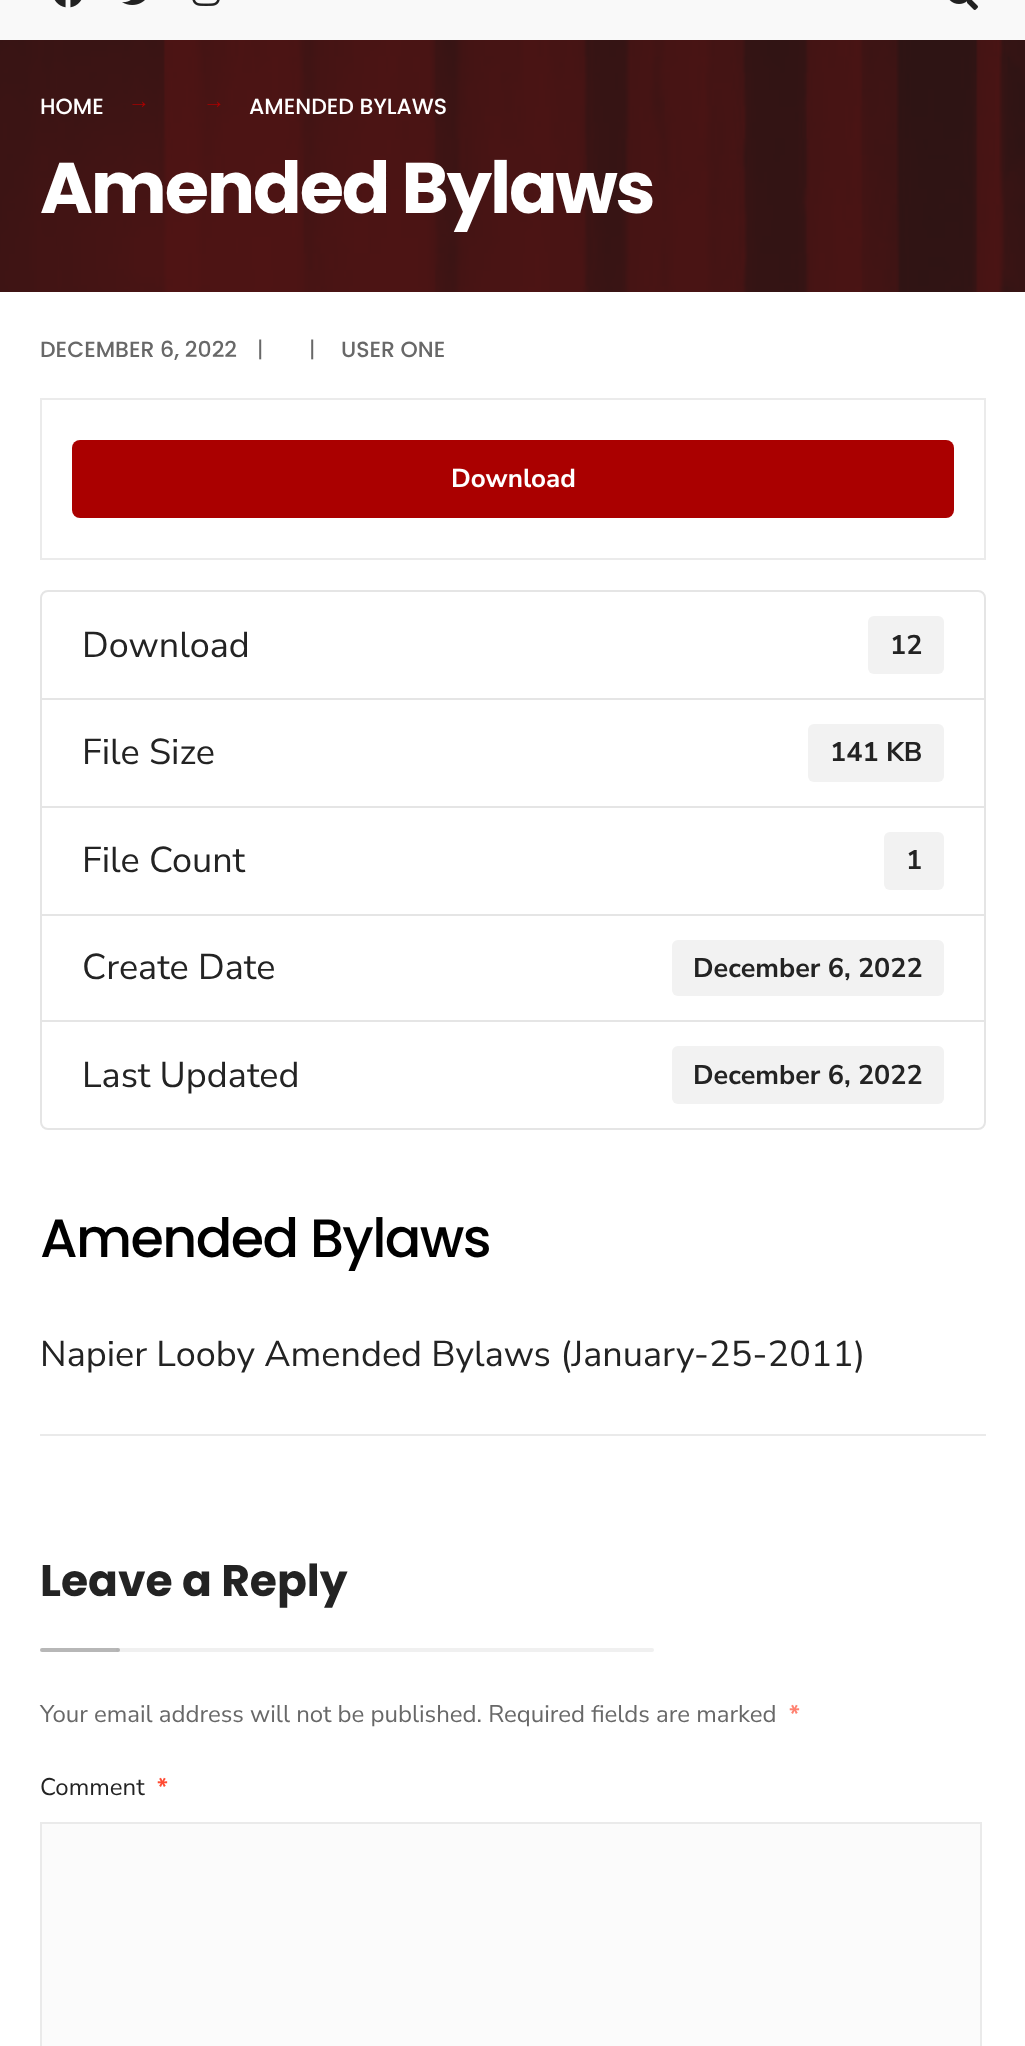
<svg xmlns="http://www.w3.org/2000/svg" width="1025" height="2046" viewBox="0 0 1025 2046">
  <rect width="100%" height="100%" fill="#ffffff"/>
  <rect x="0" y="0" width="1025" height="40" fill="#f9f9f9"/>
  <image x="54" y="0" width="28" height="8" href="img1.png"/>
  <image x="122" y="0" width="23" height="5" href="img2.png"/>
  <image x="192" y="0" width="28" height="6" href="img3.png"/>
  <image x="949" y="0" width="29" height="10" href="img4.png"/>
  <rect x="0" y="40" width="1025" height="252" fill="#1e1e1e"/>
  <image x="0" y="40" width="1025" height="252" href="img5.png"/>
  <text x="40" y="114" font-family="Poppins" font-size="22" font-weight="500" fill="#ffffff">HOME</text>
  <text x="128" y="108" font-family="Liberation Serif" font-size="22" fill="#aa0000">→</text>
  <text x="203" y="108" font-family="Liberation Serif" font-size="22" fill="#aa0000">→</text>
  <text x="249" y="114" font-family="Poppins" font-size="22" font-weight="500" fill="#ffffff">AMENDED BYLAWS</text>
  <text x="40" y="213" font-family="Poppins" font-size="71.75" font-weight="bold" letter-spacing="-2.1" fill="#ffffff">Amended Bylaws</text>
  <text x="40" y="357" font-family="Poppins" font-size="22" font-weight="500" fill="#686868">DECEMBER 6, 2022</text>
  <text x="257" y="357" font-family="Poppins" font-size="22" fill="#686868">|</text>
  <text x="309" y="357" font-family="Poppins" font-size="22" fill="#686868">|</text>
  <text x="341" y="357" font-family="Poppins" font-size="22" font-weight="500" fill="#686868">USER ONE</text>
  <rect x="41" y="399" width="944" height="160" fill="none" stroke="#ebebeb" stroke-width="2"/>
  <rect x="72" y="440" width="882" height="78" rx="8" fill="#aa0000"/>
  <text x="451" y="487" font-family="Nunito Sans" font-size="26" font-weight="bold" fill="#ffffff">Download</text>
  <path d="M48 591H978C982 591 985 594 985 598V699H41V598C41 594 44 591 48 591Z" fill="none" stroke="#e5e5e5" stroke-width="2"/>
  <text x="82" y="657" font-family="Nunito Sans" font-size="36" fill="#232323">Download</text>
  <rect x="868" y="616" width="76" height="58" rx="6" fill="#f2f2f2"/>
  <text x="890" y="654" font-family="Nunito Sans" font-size="27" font-weight="bold" fill="#232323">12</text>
  <rect x="41" y="699" width="944" height="108" fill="none" stroke="#e5e5e5" stroke-width="2"/>
  <text x="82" y="764" font-family="Nunito Sans" font-size="36" fill="#232323">File Size</text>
  <rect x="808" y="724" width="136" height="58" rx="6" fill="#f2f2f2"/>
  <text x="830" y="761" font-family="Nunito Sans" font-size="27" font-weight="bold" fill="#232323">141 KB</text>
  <rect x="41" y="807" width="944" height="108" fill="none" stroke="#e5e5e5" stroke-width="2"/>
  <text x="82" y="872" font-family="Nunito Sans" font-size="36" fill="#232323">File Count</text>
  <rect x="884" y="832" width="60" height="58" rx="6" fill="#f2f2f2"/>
  <text x="906" y="869" font-family="Nunito Sans" font-size="27" font-weight="bold" fill="#232323">1</text>
  <rect x="41" y="915" width="944" height="106" fill="none" stroke="#e5e5e5" stroke-width="2"/>
  <text x="82" y="979" font-family="Nunito Sans" font-size="36" fill="#232323">Create Date</text>
  <rect x="672" y="940" width="272" height="56" rx="6" fill="#f2f2f2"/>
  <text x="693" y="977" font-family="Nunito Sans" font-size="27" font-weight="bold" fill="#232323">December 6, 2022</text>
  <path d="M41 1021H985V1122C985 1126 982 1129 978 1129H48C44 1129 41 1126 41 1122Z" fill="#ffffff" stroke="#e5e5e5" stroke-width="2"/>
  <text x="82" y="1087" font-family="Nunito Sans" font-size="36" fill="#232323">Last Updated</text>
  <rect x="672" y="1046" width="272" height="58" rx="6" fill="#f2f2f2"/>
  <text x="693" y="1084" font-family="Nunito Sans" font-size="27" font-weight="bold" fill="#232323">December 6, 2022</text>
  <text x="40" y="1257" font-family="Poppins" font-size="54" font-weight="500" letter-spacing="-1.6" fill="#000000">Amended Bylaws</text>
  <text x="40" y="1366" font-family="Nunito Sans" font-size="36" fill="#232323">Napier Looby Amended Bylaws (January-25-2011)</text>
  <rect x="40" y="1434" width="946" height="2" fill="#eaeaea"/>
  <text x="40" y="1596" font-family="Poppins" font-size="44" font-weight="bold" fill="#232323">Leave a Reply</text>
  <rect x="116" y="1648" width="538" height="4" rx="2" fill="#f0f0f0"/>
  <rect x="40" y="1648" width="80" height="4" rx="2" fill="#999999" fill-opacity="0.7"/>
  <text x="40" y="1722" font-family="Nunito Sans" font-size="24" fill="#686868">Your email address will not be published. Required fields are marked</text>
  <text x="789" y="1722" font-family="Nunito Sans" font-size="24" font-weight="bold" fill="#ff8170">*</text>
  <text x="40" y="1795" font-family="Nunito Sans" font-size="24" fill="#232323">Comment</text>
  <text x="157" y="1795" font-family="Nunito Sans" font-size="24" font-weight="bold" fill="#ff4b33">*</text>
  <rect x="41" y="1823" width="940" height="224" fill="#fbfbfb" stroke="#eaeaea" stroke-width="2"/>
</svg>
